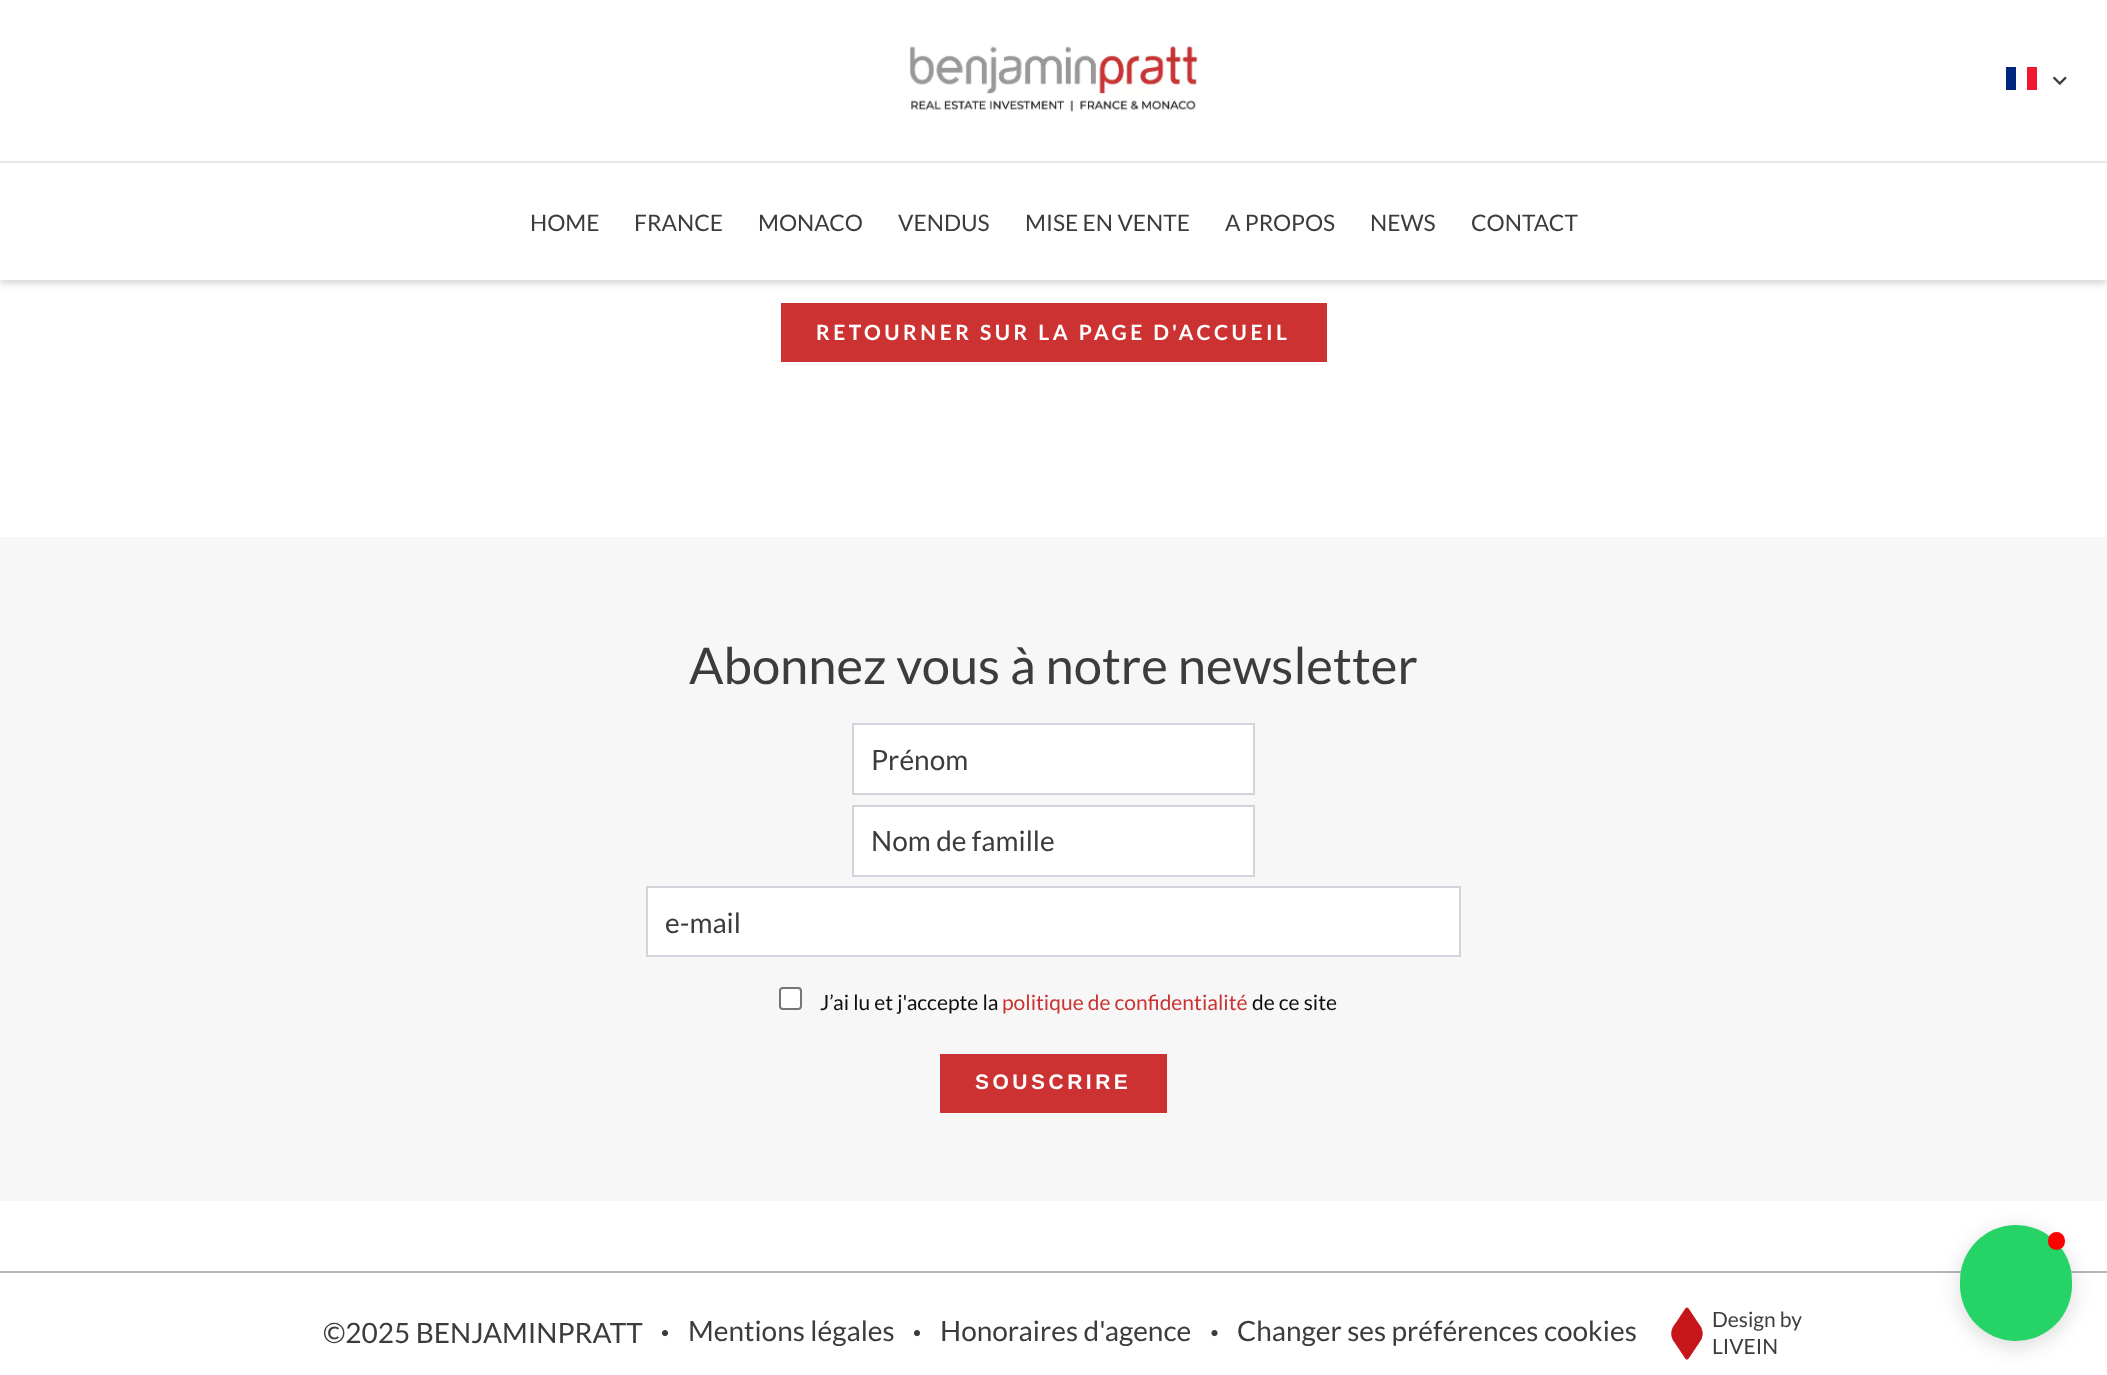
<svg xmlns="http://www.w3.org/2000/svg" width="2107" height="1375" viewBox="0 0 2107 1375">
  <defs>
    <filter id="blur1" x="-50%" y="-200%" width="200%" height="500%"><feGaussianBlur stdDeviation="3"/></filter>
    <filter id="blur2" x="-50%" y="-200%" width="200%" height="500%"><feGaussianBlur stdDeviation="10.5"/></filter>
  </defs>
  <rect width="100%" height="100%" fill="#ffffff"/>
  <rect x="0" y="4" width="2107" height="280" fill="#000000" fill-opacity="0.15" filter="url(#blur1)"/>
  <rect x="0" y="0" width="2107" height="280" fill="#ffffff"/>
  <rect x="0" y="161" width="2107" height="2" fill="#e6e6e6"/>
  <image x="909" y="44" width="289" height="68" href="img1.png"/>
  <rect x="2006" y="67" width="10" height="23" fill="#00267f"/>
  <rect x="2027" y="67" width="10" height="23" fill="#f31830"/>
  <image x="2052" y="76" width="15" height="9" href="img2.png"/>
  <text x="530" y="231" font-family="Lato" font-size="22.75" fill="#3c3c3c">HOME</text>
  <text x="634" y="231" font-family="Lato" font-size="22.75" fill="#3c3c3c">FRANCE</text>
  <text x="758" y="231" font-family="Lato" font-size="22.75" fill="#3c3c3c">MONACO</text>
  <text x="898" y="231" font-family="Lato" font-size="22.75" fill="#3c3c3c">VENDUS</text>
  <text x="1025" y="231" font-family="Lato" font-size="22.75" fill="#3c3c3c">MISE EN VENTE</text>
  <text x="1225" y="231" font-family="Lato" font-size="22.75" fill="#3c3c3c">A PROPOS</text>
  <text x="1370" y="231" font-family="Lato" font-size="22.75" fill="#3c3c3c">NEWS</text>
  <text x="1471" y="231" font-family="Lato" font-size="22.75" fill="#3c3c3c">CONTACT</text>
  <rect x="781" y="303" width="546" height="59" fill="#cc3232"/>
  <text x="816" y="340" font-family="Lato" font-size="21" font-weight="bold" letter-spacing="3.5" fill="#ffffff">RETOURNER SUR LA PAGE D'ACCUEIL</text>
  <rect x="0" y="537" width="2107" height="664" fill="#f7f7f7"/>
  <text x="689" y="684" font-family="Lato" font-size="50.75" fill="#3c3c3c">Abonnez vous à notre newsletter</text>
  <rect x="853" y="724" width="401" height="70" fill="#ffffff" stroke="#d1d5db" stroke-width="2"/>
  <text x="871" y="770" font-family="Lato" font-size="28" fill="#3c3c3c">Prénom</text>
  <rect x="853" y="806" width="401" height="70" fill="#ffffff" stroke="#d1d5db" stroke-width="2"/>
  <text x="871" y="851" font-family="Lato" font-size="28" fill="#3c3c3c">Nom de famille</text>
  <rect x="647" y="887" width="813" height="69" fill="#ffffff" stroke="#d1d5db" stroke-width="2"/>
  <text x="665" y="933" font-family="Lato" font-size="28" fill="#3c3c3c">e-mail</text>
  <rect x="780" y="988" width="21" height="21" rx="3" fill="#ffffff" stroke="#767676" stroke-width="2"/>
  <text x="820" y="1010" font-family="Lato" font-size="21" fill="#0e0e0e">J’ai lu et j'accepte la</text>
  <text x="1002" y="1010" font-family="Lato" font-size="21" fill="#cc3232">politique de confidentialité</text>
  <text x="1252" y="1010" font-family="Lato" font-size="21" fill="#0e0e0e">de ce site</text>
  <rect x="940" y="1054" width="227" height="59" fill="#cc3232"/>
  <text x="975" y="1089" font-family="Liberation Sans" font-size="21" font-weight="bold" letter-spacing="3.5" fill="#ffffff">SOUSCRIRE</text>
  <rect x="0" y="1271" width="2107" height="2" fill="#b7b7b7"/>
  <text x="323" y="1343" font-family="Lato" font-size="28" fill="#3c3c3c">©2025 BENJAMINPRATT</text>
  <image x="662" y="1330" width="6" height="7" href="img3.png"/>
  <text x="688" y="1341" font-family="Lato" font-size="28" fill="#3c3c3c">Mentions légales</text>
  <image x="914" y="1330" width="6" height="7" href="img3.png"/>
  <text x="940" y="1341" font-family="Lato" font-size="28" fill="#3c3c3c">Honoraires d'agence</text>
  <image x="1211" y="1330" width="7" height="7" href="img4.png"/>
  <text x="1237" y="1341" font-family="Lato" font-size="28" fill="#3c3c3c">Changer ses préférences cookies</text>
  <image x="1671" y="1307" width="32" height="53" href="img5.png"/>
  <text x="1712" y="1327" font-family="Lato" font-size="21" fill="#3c3c3c">Design by</text>
  <text x="1712" y="1354" font-family="Lato" font-size="21" fill="#3c3c3c">LIVEIN</text>
  <rect x="1960" y="1230" width="112" height="116" rx="56" fill="#000000" fill-opacity="0.15" filter="url(#blur2)"/>
  <rect x="1960" y="1225" width="112" height="116" rx="56" fill="#25d366"/>
  <rect x="2048" y="1232" width="17" height="18" rx="8.5" fill="#ff0000"/>
</svg>
